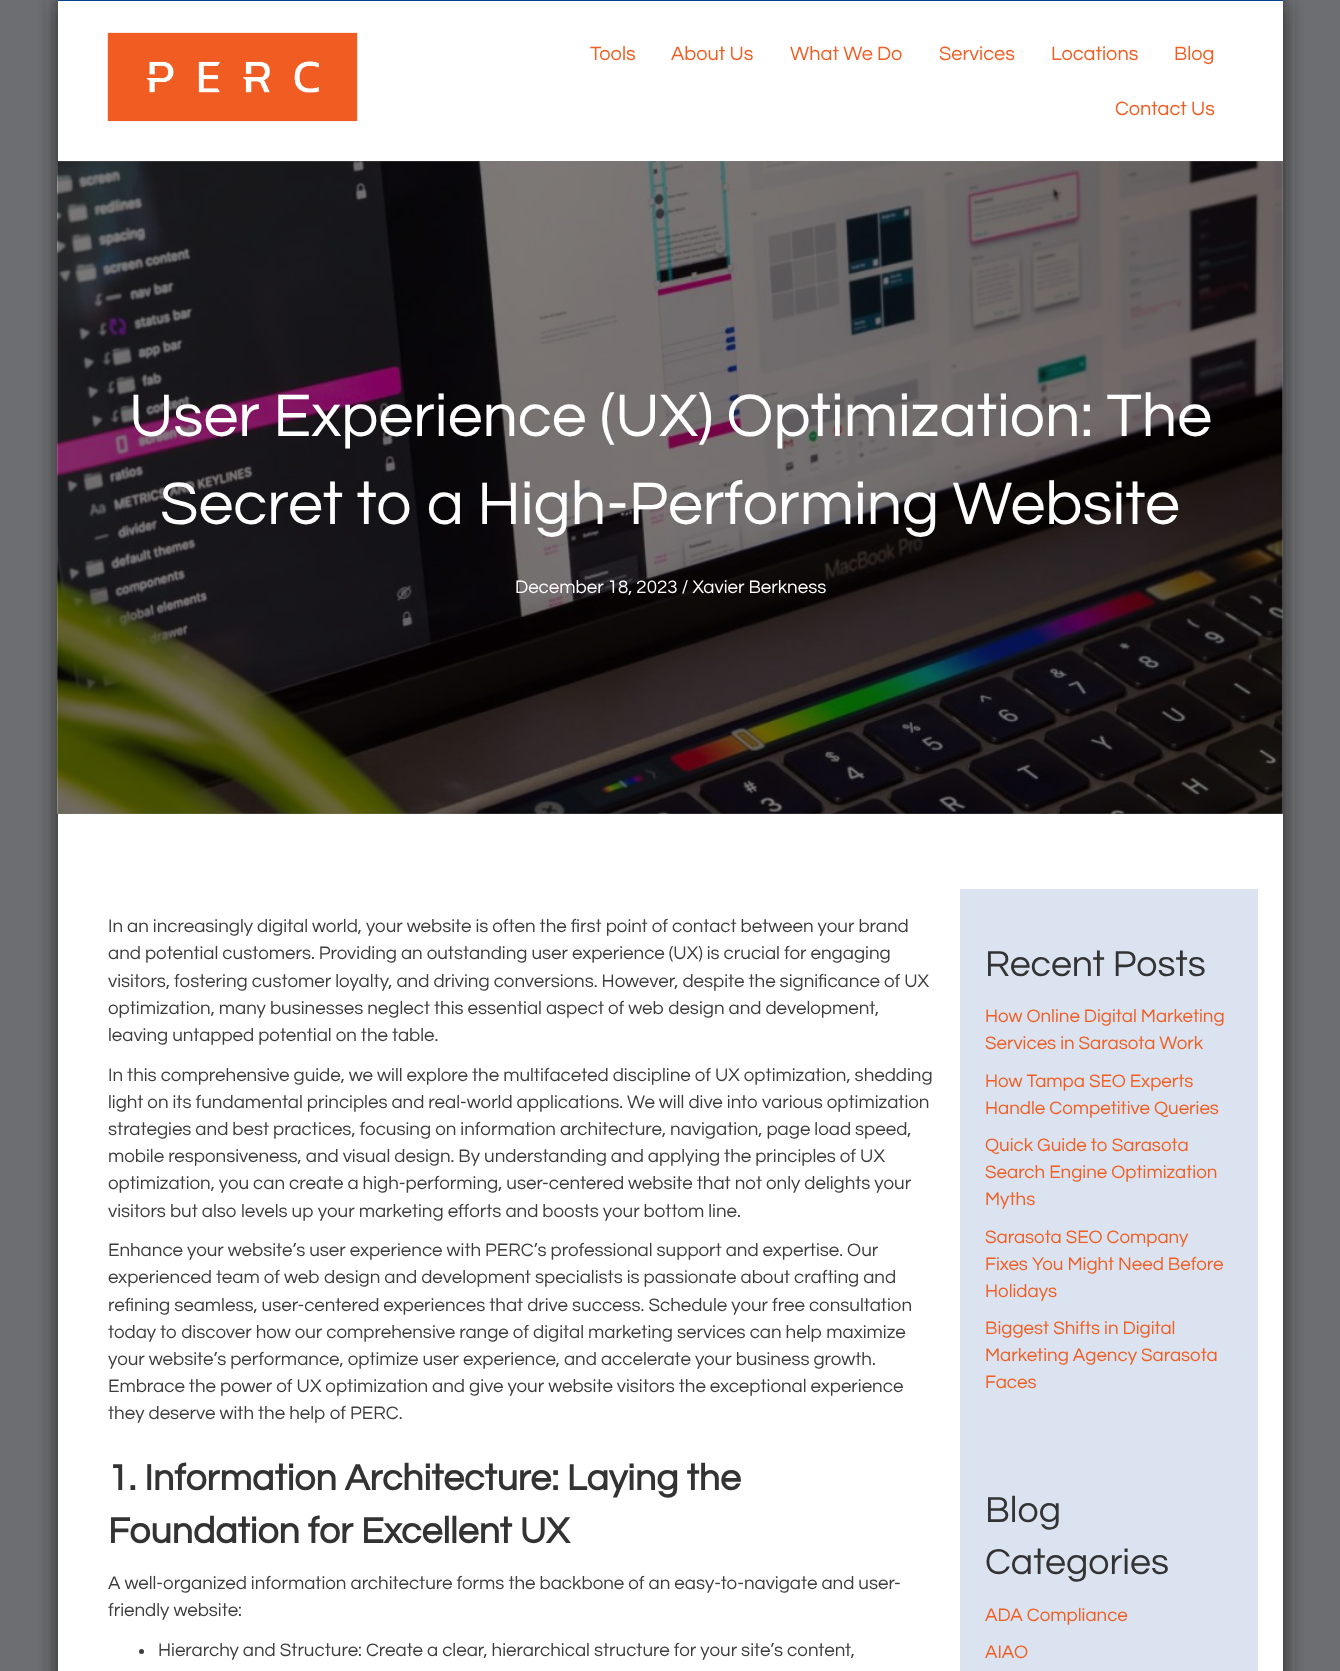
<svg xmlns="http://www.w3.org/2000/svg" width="1340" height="1671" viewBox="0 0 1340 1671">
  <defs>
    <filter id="blur1" x="-50%" y="-200%" width="200%" height="500%"><feGaussianBlur stdDeviation="10"/></filter>
  </defs>
  <rect width="100%" height="100%" fill="#6d6e71"/>
  <rect x="58" y="0" width="1225" height="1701" fill="#262626" filter="url(#blur1)"/>
  <rect x="58" y="0" width="1225" height="1" fill="#034292"/>
  <rect x="58" y="1" width="1225" height="1670" fill="#ffffff"/>
  <image x="107" y="32" width="251" height="90" href="img1.png"/>
  <text x="590" y="60" font-family="Questrial" font-size="20" fill="#f15d22">Tools</text>
  <text x="671" y="60" font-family="Questrial" font-size="20" fill="#f15d22">About Us</text>
  <text x="790" y="60" font-family="Questrial" font-size="20" fill="#f15d22">What We Do</text>
  <text x="939" y="60" font-family="Questrial" font-size="20" fill="#f15d22">Services</text>
  <text x="1051" y="60" font-family="Questrial" font-size="20" fill="#f15d22">Locations</text>
  <text x="1174" y="60" font-family="Questrial" font-size="20" fill="#f15d22">Blog</text>
  <text x="1115" y="115" font-family="Questrial" font-size="20" fill="#f15d22">Contact Us</text>
  <image x="57" y="161" width="1226" height="653" href="img2.png"/>
  <rect x="58" y="161" width="1225" height="653" fill="#0a0000" fill-opacity="0.5"/>
  <text x="129" y="436" font-family="Questrial" font-size="62.5" fill="#ffffff">User Experience (UX) Optimization: The</text>
  <text x="160" y="524" font-family="Questrial" font-size="62.5" fill="#ffffff">Secret to a High-Performing Website</text>
  <text x="515" y="593" font-family="Questrial" font-size="18.75" fill="#ffffff">December 18, 2023 / Xavier Berkness</text>
  <text x="108" y="932" font-family="Questrial" font-size="18.75" fill="#3d3d3d">In an increasingly digital world, your website is often the first point of contact between your brand</text>
  <text x="108" y="959" font-family="Questrial" font-size="18.75" fill="#3d3d3d">and potential customers. Providing an outstanding user experience (UX) is crucial for engaging</text>
  <text x="108" y="987" font-family="Questrial" font-size="18.75" fill="#3d3d3d">visitors, fostering customer loyalty, and driving conversions. However, despite the significance of UX</text>
  <text x="108" y="1014" font-family="Questrial" font-size="18.75" fill="#3d3d3d">optimization, many businesses neglect this essential aspect of web design and development,</text>
  <text x="108" y="1041" font-family="Questrial" font-size="18.75" fill="#3d3d3d">leaving untapped potential on the table.</text>
  <text x="108" y="1081" font-family="Questrial" font-size="18.75" fill="#3d3d3d">In this comprehensive guide, we will explore the multifaceted discipline of UX optimization, shedding</text>
  <text x="108" y="1108" font-family="Questrial" font-size="18.75" fill="#3d3d3d">light on its fundamental principles and real-world applications. We will dive into various optimization</text>
  <text x="108" y="1135" font-family="Questrial" font-size="18.75" fill="#3d3d3d">strategies and best practices, focusing on information architecture, navigation, page load speed,</text>
  <text x="108" y="1162" font-family="Questrial" font-size="18.75" fill="#3d3d3d">mobile responsiveness, and visual design. By understanding and applying the principles of UX</text>
  <text x="108" y="1189" font-family="Questrial" font-size="18.75" fill="#3d3d3d">optimization, you can create a high-performing, user-centered website that not only delights your</text>
  <text x="108" y="1217" font-family="Questrial" font-size="18.75" fill="#3d3d3d">visitors but also levels up your marketing efforts and boosts your bottom line.</text>
  <text x="108" y="1256" font-family="Questrial" font-size="18.75" fill="#3d3d3d">Enhance your website’s user experience with PERC’s professional support and expertise. Our</text>
  <text x="108" y="1283" font-family="Questrial" font-size="18.75" fill="#3d3d3d">experienced team of web design and development specialists is passionate about crafting and</text>
  <text x="108" y="1311" font-family="Questrial" font-size="18.75" fill="#3d3d3d">refining seamless, user-centered experiences that drive success. Schedule your free consultation</text>
  <text x="108" y="1338" font-family="Questrial" font-size="18.75" fill="#3d3d3d">today to discover how our comprehensive range of digital marketing services can help maximize</text>
  <text x="108" y="1365" font-family="Questrial" font-size="18.75" fill="#3d3d3d">your website’s performance, optimize user experience, and accelerate your business growth.</text>
  <text x="108" y="1392" font-family="Questrial" font-size="18.75" fill="#3d3d3d">Embrace the power of UX optimization and give your website visitors the exceptional experience</text>
  <text x="108" y="1419" font-family="Questrial" font-size="18.75" fill="#3d3d3d">they deserve with the help of PERC.</text>
  <text x="108" y="1490" font-family="Questrial" font-size="37.5" font-weight="bold" fill="#333333">1. Information Architecture: Laying the</text>
  <text x="108" y="1543" font-family="Questrial" font-size="37.5" font-weight="bold" fill="#333333">Foundation for Excellent UX</text>
  <text x="108" y="1589" font-family="Questrial" font-size="18.75" fill="#3d3d3d">A well-organized information architecture forms the backbone of an easy-to-navigate and user-</text>
  <text x="108" y="1616" font-family="Questrial" font-size="18.75" fill="#3d3d3d">friendly website:</text>
  <circle cx="141.5" cy="1651.5" r="2.5" fill="#3d3d3d"/>
  <text x="158" y="1656" font-family="Questrial" font-size="18.75" fill="#3d3d3d">Hierarchy and Structure: Create a clear, hierarchical structure for your site’s content,</text>
  <rect x="960" y="889" width="298" height="782" fill="#dae3ef"/>
  <text x="985" y="976" font-family="Questrial" font-size="37.5" fill="#333333">Recent Posts</text>
  <text x="985" y="1022" font-family="Questrial" font-size="18.75" fill="#f15d22">How Online Digital Marketing</text>
  <text x="985" y="1049" font-family="Questrial" font-size="18.75" fill="#f15d22">Services in Sarasota Work</text>
  <text x="985" y="1087" font-family="Questrial" font-size="18.75" fill="#f15d22">How Tampa SEO Experts</text>
  <text x="985" y="1114" font-family="Questrial" font-size="18.75" fill="#f15d22">Handle Competitive Queries</text>
  <text x="985" y="1151" font-family="Questrial" font-size="18.75" fill="#f15d22">Quick Guide to Sarasota</text>
  <text x="985" y="1178" font-family="Questrial" font-size="18.75" fill="#f15d22">Search Engine Optimization</text>
  <text x="985" y="1205" font-family="Questrial" font-size="18.75" fill="#f15d22">Myths</text>
  <text x="985" y="1243" font-family="Questrial" font-size="18.75" fill="#f15d22">Sarasota SEO Company</text>
  <text x="985" y="1270" font-family="Questrial" font-size="18.75" fill="#f15d22">Fixes You Might Need Before</text>
  <text x="985" y="1297" font-family="Questrial" font-size="18.75" fill="#f15d22">Holidays</text>
  <text x="985" y="1334" font-family="Questrial" font-size="18.75" fill="#f15d22">Biggest Shifts in Digital</text>
  <text x="985" y="1361" font-family="Questrial" font-size="18.75" fill="#f15d22">Marketing Agency Sarasota</text>
  <text x="985" y="1388" font-family="Questrial" font-size="18.75" fill="#f15d22">Faces</text>
  <text x="985" y="1522" font-family="Questrial" font-size="37.5" fill="#333333">Blog</text>
  <text x="985" y="1574" font-family="Questrial" font-size="37.5" fill="#333333">Categories</text>
  <text x="985" y="1621" font-family="Questrial" font-size="18.75" fill="#f15d22">ADA Compliance</text>
  <text x="985" y="1658" font-family="Questrial" font-size="18.75" fill="#f15d22">AIAO</text>
</svg>
